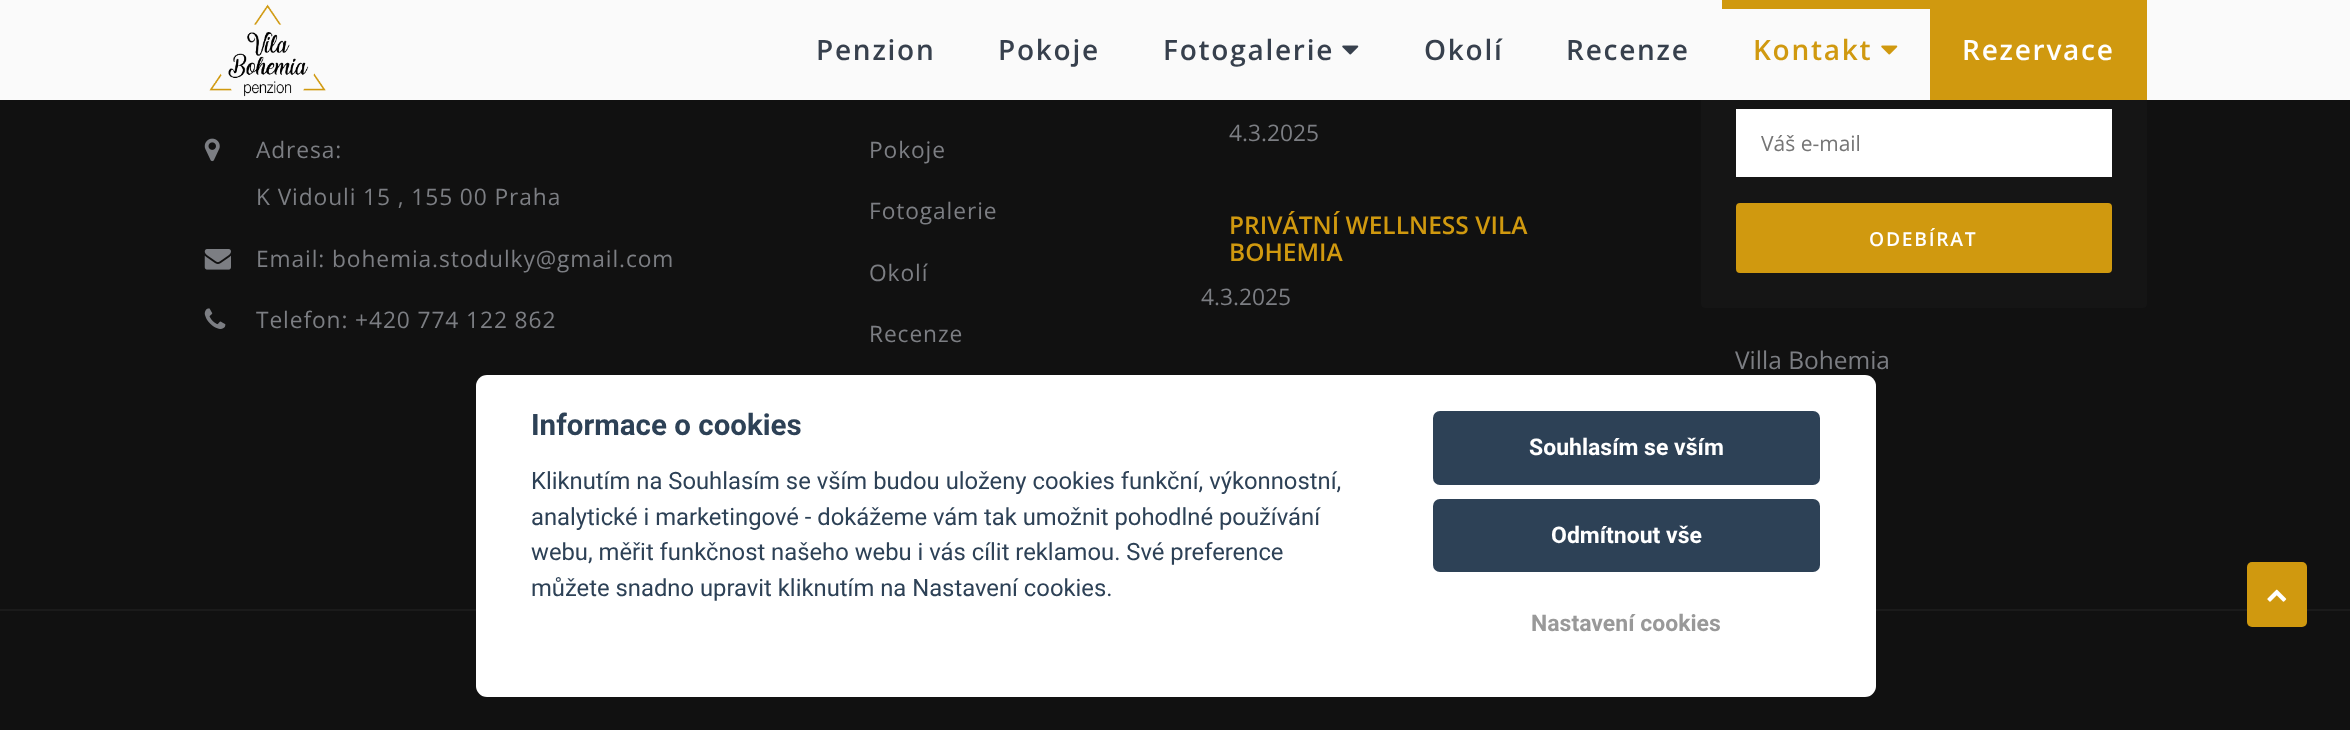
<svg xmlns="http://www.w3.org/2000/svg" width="2350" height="730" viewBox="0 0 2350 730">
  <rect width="100%" height="100%" fill="#111111"/>
  <rect x="1701" y="74" width="446" height="234" rx="4" fill="#151515"/>
  <rect x="0" y="0" width="2350" height="100" fill="#fafafa"/>
  <image x="209" y="4" width="117" height="93" href="img1.png"/>
  <text x="816" y="60" font-family="Open Sans" font-size="28" font-weight="600" letter-spacing="1.75" fill="#37404d">Penzion</text>
  <text x="998" y="60" font-family="Open Sans" font-size="28" font-weight="600" letter-spacing="1.75" fill="#37404d">Pokoje</text>
  <text x="1163" y="60" font-family="Open Sans" font-size="28" font-weight="600" letter-spacing="1.75" fill="#37404d">Fotogalerie</text>
  <image x="1342" y="45" width="17" height="10" href="img2.png"/>
  <text x="1424" y="60" font-family="Open Sans" font-size="28" font-weight="600" letter-spacing="1.75" fill="#37404d">Okolí</text>
  <text x="1566" y="60" font-family="Open Sans" font-size="28" font-weight="600" letter-spacing="1.75" fill="#37404d">Recenze</text>
  <rect x="1722" y="0" width="208" height="9" fill="#d0990f"/>
  <text x="1753" y="60" font-family="Open Sans" font-size="28" font-weight="600" letter-spacing="1.75" fill="#d0990f">Kontakt</text>
  <image x="1881" y="45" width="17" height="10" href="img3.png"/>
  <rect x="1930" y="0" width="217" height="100" fill="#d0990f"/>
  <text x="1962" y="60" font-family="Open Sans" font-size="28" font-weight="600" letter-spacing="1.75" fill="#ffffff">Rezervace</text>
  <image x="204" y="138" width="16" height="24" href="img4.png"/>
  <text x="256" y="158" font-family="Open Sans" font-size="22.75" letter-spacing="0.9" fill="#7c7e83">Adresa:</text>
  <text x="256" y="205" font-family="Open Sans" font-size="22.75" letter-spacing="0.9" fill="#7c7e83">K Vidouli 15 , 155 00 Praha</text>
  <image x="204" y="249" width="27" height="21" href="img5.png"/>
  <text x="256" y="267" font-family="Open Sans" font-size="22.75" letter-spacing="0.9" fill="#7c7e83">Email: bohemia.stodulky@gmail.com</text>
  <image x="204" y="308" width="22" height="21" href="img6.png"/>
  <text x="256" y="328" font-family="Open Sans" font-size="22.75" letter-spacing="0.9" fill="#7c7e83">Telefon: +420 774 122 862</text>
  <text x="869" y="158" font-family="Open Sans" font-size="22.75" letter-spacing="0.9" fill="#7c7e83">Pokoje</text>
  <text x="869" y="219" font-family="Open Sans" font-size="22.75" letter-spacing="0.9" fill="#7c7e83">Fotogalerie</text>
  <text x="869" y="281" font-family="Open Sans" font-size="22.75" letter-spacing="0.9" fill="#7c7e83">Okolí</text>
  <text x="869" y="342" font-family="Open Sans" font-size="22.75" letter-spacing="0.9" fill="#7c7e83">Recenze</text>
  <text x="1229" y="141" font-family="Open Sans" font-size="22.75" fill="#7c7e83">4.3.2025</text>
  <text x="1229" y="234" font-family="Open Sans" font-size="24.5" font-weight="600" fill="#d0990f">PRIVÁTNÍ WELLNESS VILA</text>
  <text x="1229" y="261" font-family="Open Sans" font-size="24.5" font-weight="600" fill="#d0990f">BOHEMIA</text>
  <text x="1201" y="305" font-family="Open Sans" font-size="22.75" fill="#7c7e83">4.3.2025</text>
  <rect x="1736" y="109" width="376" height="68" fill="#ffffff"/>
  <text x="1761" y="151" font-family="Open Sans" font-size="21" fill="#757575">Váš e-mail</text>
  <rect x="1738" y="205" width="372" height="66" rx="2" fill="#d0990f" stroke="#d0990f" stroke-width="4"/>
  <text x="1869" y="246" font-family="Open Sans" font-size="19.25" font-weight="600" letter-spacing="1.75" fill="#ffffff">ODEBÍRAT</text>
  <text x="1735" y="369" font-family="Open Sans" font-size="24.5" fill="#7c7e83">Villa Bohemia</text>
  <rect x="0" y="609" width="2350" height="2" fill="#1b1b1b"/>
  <rect x="476" y="375" width="1400" height="322" rx="11" fill="#ffffff"/>
  <text x="531" y="435" font-family="Roboto" font-size="29.5" font-weight="bold" fill="#2d4156">Informace o cookies</text>
  <text x="531" y="489" font-family="Roboto" font-size="23.8" fill="#2d4156">Kliknutím na Souhlasím se vším budou uloženy cookies funkční, výkonnostní,</text>
  <text x="531" y="525" font-family="Roboto" font-size="23.8" fill="#2d4156">analytické i marketingové - dokážeme vám tak umožnit pohodlné používání</text>
  <text x="531" y="560" font-family="Roboto" font-size="23.8" fill="#2d4156">webu, měřit funkčnost našeho webu i vás cílit reklamou. Své preference</text>
  <text x="531" y="596" font-family="Roboto" font-size="23.8" fill="#2d4156">můžete snadno upravit kliknutím na Nastavení cookies.</text>
  <rect x="1433" y="411" width="387" height="74" rx="7" fill="#2d4156"/>
  <text x="1529" y="455" font-family="Roboto" font-size="23" font-weight="bold" fill="#ffffff">Souhlasím se vším</text>
  <rect x="1433" y="499" width="387" height="73" rx="7" fill="#2d4156"/>
  <text x="1551" y="543" font-family="Roboto" font-size="23" font-weight="bold" fill="#ffffff">Odmítnout vše</text>
  <text x="1531" y="631" font-family="Roboto" font-size="23" font-weight="bold" fill="#999999">Nastavení cookies</text>
  <rect x="2247" y="562" width="60" height="65" rx="5" fill="#d0990f"/>
  <image x="2267" y="589" width="20" height="13" href="img7.png"/>
</svg>
